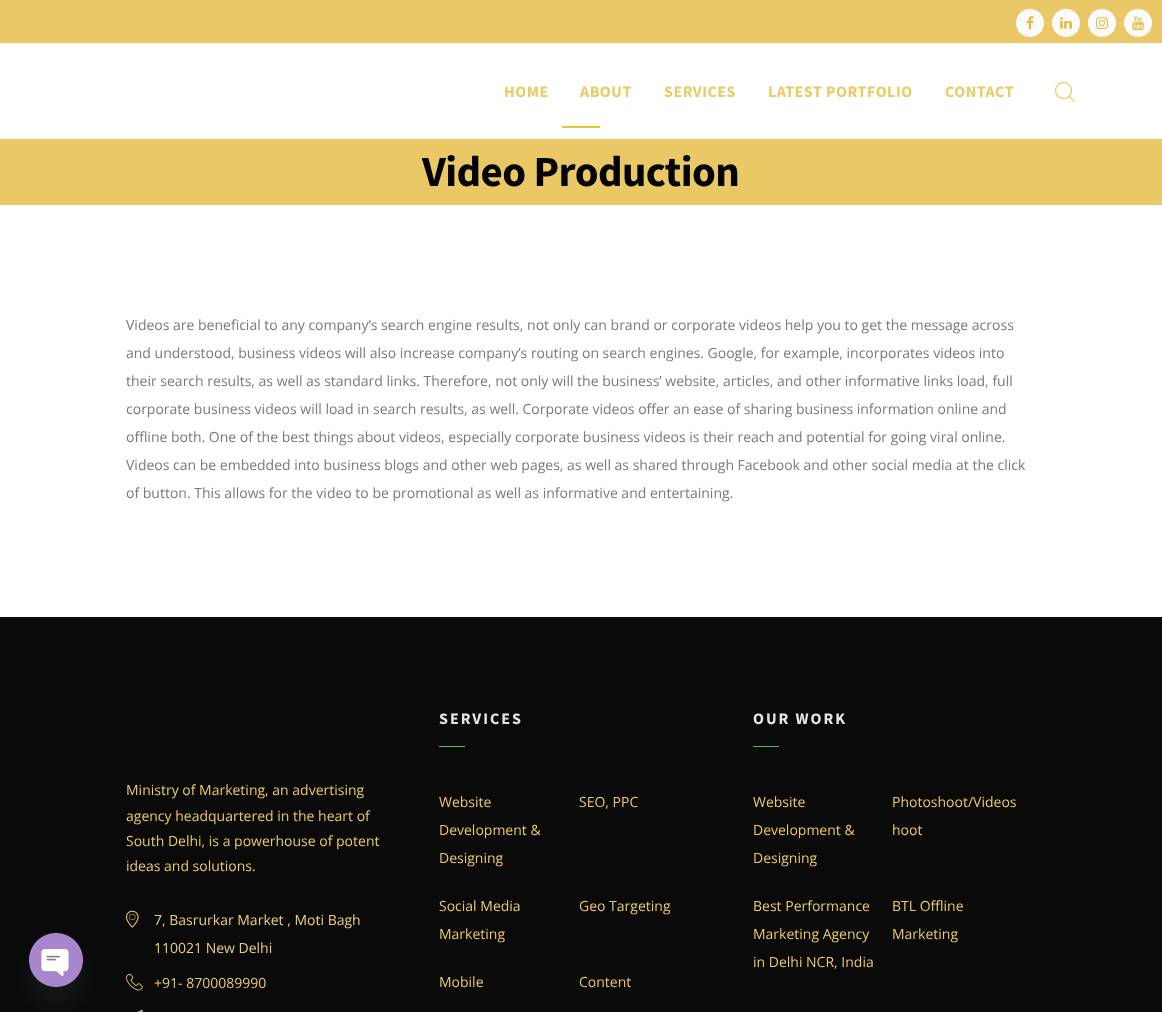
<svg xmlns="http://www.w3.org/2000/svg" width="1162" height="1012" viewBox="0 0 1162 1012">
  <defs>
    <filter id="blur1" x="-50%" y="-200%" width="200%" height="500%"><feGaussianBlur stdDeviation="12"/></filter>
  </defs>
  <rect width="100%" height="100%" fill="#ffffff"/>
  <rect x="0" y="617" width="1162" height="395" fill="#0a0a0a"/>
  <rect x="29" y="949" width="54" height="54" rx="27" fill="#49687e" fill-opacity="0.16" filter="url(#blur1)"/>
  <image x="29" y="933" width="54" height="54" href="img1.png"/>
  <rect x="0" y="0" width="1162" height="43" fill="#e9c865"/>
  <circle cx="1030" cy="23" r="14" fill="#fafafa"/>
  <image x="1026" y="16" width="8" height="14" href="img2.png"/>
  <circle cx="1066" cy="23" r="14" fill="#fafafa"/>
  <image x="1060" y="17" width="12" height="12" href="img3.png"/>
  <circle cx="1102" cy="23" r="14" fill="#fafafa"/>
  <image x="1096" y="17" width="12" height="13" href="img4.png"/>
  <circle cx="1138" cy="23" r="14" fill="#fafafa"/>
  <image x="1132" y="16" width="12" height="15" href="img5.png"/>
  <text x="504" y="97" font-family="Source Sans Pro" font-size="16" font-weight="bold" letter-spacing="0.5" fill="#eaca69">HOME</text>
  <text x="580" y="97" font-family="Source Sans Pro" font-size="16" font-weight="bold" letter-spacing="0.5" fill="#eaca69">ABOUT</text>
  <text x="664" y="97" font-family="Source Sans Pro" font-size="16" font-weight="bold" letter-spacing="0.5" fill="#eaca69">SERVICES</text>
  <text x="768" y="97" font-family="Source Sans Pro" font-size="16" font-weight="bold" letter-spacing="0.5" fill="#eaca69">LATEST PORTFOLIO</text>
  <text x="945" y="97" font-family="Source Sans Pro" font-size="16" font-weight="bold" letter-spacing="0.5" fill="#eaca69">CONTACT</text>
  <image x="1055" y="82" width="20" height="20" href="img6.png"/>
  <rect x="0" y="139" width="1162" height="66" fill="#e9c865"/>
  <rect x="562" y="126" width="38" height="2" fill="#eac539"/>
  <text x="422" y="186" font-family="Source Sans Pro" font-size="43" font-weight="bold" letter-spacing="-0.6" fill="#040404">Video Production</text>
  <text x="126" y="330" font-family="Open Sans" font-size="14" fill="#78787f">Videos are beneficial to any company’s search engine results, not only can brand or corporate videos help you to get the message across</text>
  <text x="126" y="358" font-family="Open Sans" font-size="14" fill="#78787f">and understood, business videos will also increase company’s routing on search engines. Google, for example, incorporates videos into</text>
  <text x="126" y="386" font-family="Open Sans" font-size="14" fill="#78787f">their search results, as well as standard links. Therefore, not only will the business’ website, articles, and other informative links load, full</text>
  <text x="126" y="414" font-family="Open Sans" font-size="14" fill="#78787f">corporate business videos will load in search results, as well. Corporate videos offer an ease of sharing business information online and</text>
  <text x="126" y="442" font-family="Open Sans" font-size="14" fill="#78787f">offline both. One of the best things about videos, especially corporate business videos is their reach and potential for going viral online.</text>
  <text x="126" y="470" font-family="Open Sans" font-size="14" fill="#78787f">Videos can be embedded into business blogs and other web pages, as well as shared through Facebook and other social media at the click</text>
  <text x="126" y="498" font-family="Open Sans" font-size="14" fill="#78787f">of button. This allows for the video to be promotional as well as informative and entertaining.</text>
  <text x="126" y="795" font-family="Open Sans" font-size="14" fill="#eaca69">Ministry of Marketing, an advertising</text>
  <text x="126" y="821" font-family="Open Sans" font-size="14" fill="#eaca69">agency headquartered in the heart of</text>
  <text x="126" y="846" font-family="Open Sans" font-size="14" fill="#eaca69">South Delhi, is a powerhouse of potent</text>
  <text x="126" y="871" font-family="Open Sans" font-size="14" fill="#eaca69">ideas and solutions.</text>
  <image x="126" y="910" width="13" height="18" href="img7.png"/>
  <text x="154" y="925" font-family="Open Sans" font-size="14" fill="#eccf78">7, Basrurkar Market , Moti Bagh</text>
  <text x="154" y="953" font-family="Open Sans" font-size="14" fill="#eccf78">110021 New Delhi</text>
  <image x="126" y="973" width="17" height="18" href="img8.png"/>
  <text x="154" y="988" font-family="Open Sans" font-size="14" fill="#eaca69">+91- 8700089990</text>
  <image x="137" y="1009" width="6" height="3" href="img9.png"/>
  <text x="439" y="724" font-family="Source Sans Pro" font-size="16" font-weight="bold" letter-spacing="2" fill="#e5e5e5">SERVICES</text>
  <rect x="439" y="746" width="26" height="1" fill="#45bc71"/>
  <text x="439" y="807" font-family="Open Sans" font-size="14" fill="#eaca69">Website</text>
  <text x="439" y="835" font-family="Open Sans" font-size="14" fill="#eaca69">Development &amp;</text>
  <text x="439" y="863" font-family="Open Sans" font-size="14" fill="#eaca69">Designing</text>
  <text x="579" y="807" font-family="Open Sans" font-size="14" fill="#eaca69">SEO, PPC</text>
  <text x="439" y="911" font-family="Open Sans" font-size="14" fill="#eaca69">Social Media</text>
  <text x="439" y="939" font-family="Open Sans" font-size="14" fill="#eaca69">Marketing</text>
  <text x="579" y="911" font-family="Open Sans" font-size="14" fill="#eaca69">Geo Targeting</text>
  <text x="439" y="987" font-family="Open Sans" font-size="14" fill="#eaca69">Mobile</text>
  <text x="579" y="987" font-family="Open Sans" font-size="14" fill="#eaca69">Content</text>
  <text x="753" y="724" font-family="Source Sans Pro" font-size="16" font-weight="bold" letter-spacing="2" fill="#e5e5e5">OUR WORK</text>
  <rect x="753" y="746" width="26" height="1" fill="#45bc71"/>
  <text x="753" y="807" font-family="Open Sans" font-size="14" fill="#eaca69">Website</text>
  <text x="753" y="835" font-family="Open Sans" font-size="14" fill="#eaca69">Development &amp;</text>
  <text x="753" y="863" font-family="Open Sans" font-size="14" fill="#eaca69">Designing</text>
  <text x="892" y="807" font-family="Open Sans" font-size="14" fill="#eaca69">Photoshoot/Videos</text>
  <text x="892" y="835" font-family="Open Sans" font-size="14" fill="#eaca69">hoot</text>
  <text x="753" y="911" font-family="Open Sans" font-size="14" fill="#eaca69">Best Performance</text>
  <text x="753" y="939" font-family="Open Sans" font-size="14" fill="#eaca69">Marketing Agency</text>
  <text x="753" y="967" font-family="Open Sans" font-size="14" fill="#eaca69">in Delhi NCR, India</text>
  <text x="892" y="911" font-family="Open Sans" font-size="14" fill="#eaca69">BTL Offline</text>
  <text x="892" y="939" font-family="Open Sans" font-size="14" fill="#eaca69">Marketing</text>
</svg>
